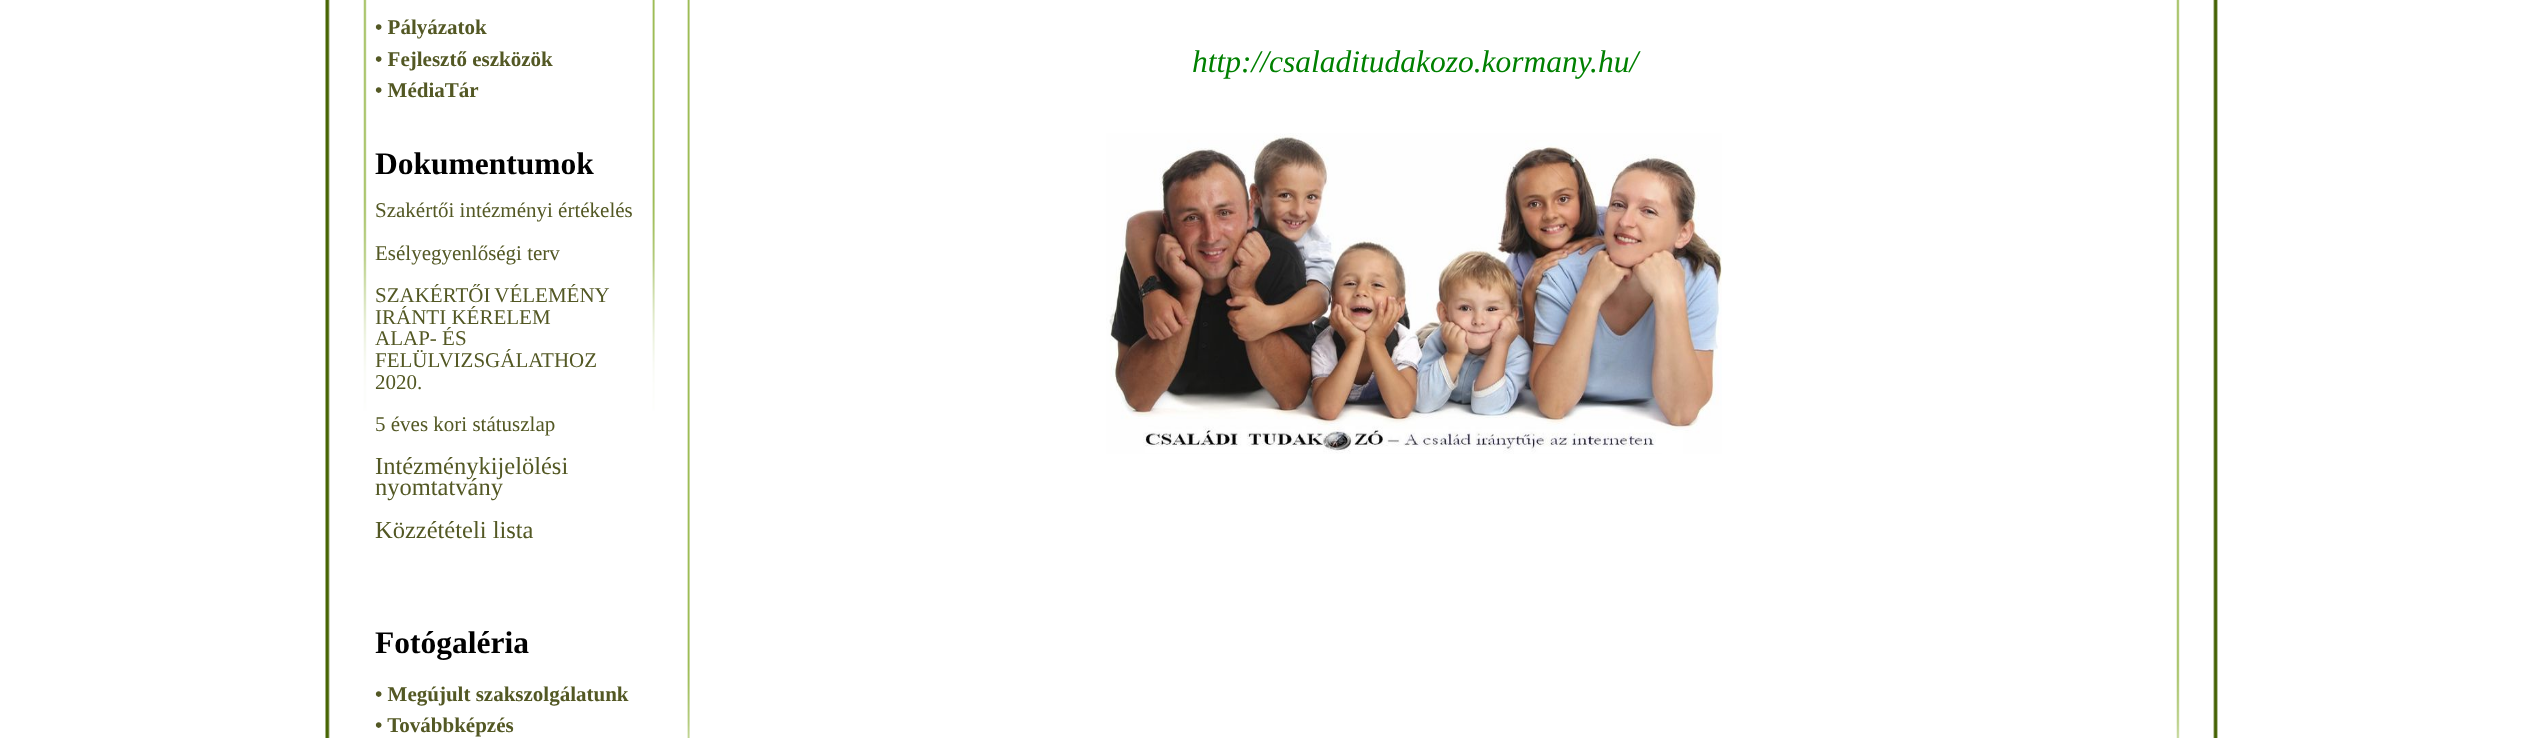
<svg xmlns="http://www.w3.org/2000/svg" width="2538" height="738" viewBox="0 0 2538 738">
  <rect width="100%" height="100%" fill="#ffffff"/>
  <image x="325" y="0" width="42" height="738" href="img1.png"/>
  <text x="375" y="34" font-family="Liberation Serif" font-size="21" font-weight="bold" fill="#535824">• Pályázatok</text>
  <text x="375" y="66" font-family="Liberation Serif" font-size="21" font-weight="bold" fill="#535824">• Fejlesztő eszközök</text>
  <text x="375" y="97" font-family="Liberation Serif" font-size="21" font-weight="bold" fill="#535824">• MédiaTár</text>
  <text x="375" y="174" font-family="Liberation Serif" font-size="31.5" font-weight="bold" fill="#000000">Dokumentumok</text>
  <text x="375" y="217" font-family="Liberation Serif" font-size="21" fill="#535824">Szakértői intézményi értékelés</text>
  <text x="375" y="260" font-family="Liberation Serif" font-size="21" fill="#535824">Esélyegyenlőségi terv</text>
  <text x="375" y="302" word-spacing="-1" font-family="Liberation Serif" font-size="21" fill="#535824">SZAKÉRTŐI VÉLEMÉNY</text>
  <text x="375" y="324" font-family="Liberation Serif" font-size="21" fill="#535824">IRÁNTI KÉRELEM</text>
  <text x="375" y="345" font-family="Liberation Serif" font-size="21" fill="#535824">ALAP- ÉS</text>
  <text x="375" y="367" font-family="Liberation Serif" font-size="21" fill="#535824">FELÜLVIZSGÁLATHOZ</text>
  <text x="375" y="389" font-family="Liberation Serif" font-size="21" fill="#535824">2020.</text>
  <text x="375" y="431" font-family="Liberation Serif" font-size="21" fill="#535824">5 éves kori státuszlap</text>
  <text x="375" y="474" font-family="Liberation Serif" font-size="24.5" fill="#535824">Intézménykijelölési</text>
  <text x="375" y="495" font-family="Liberation Serif" font-size="24.5" fill="#535824">nyomtatvány</text>
  <text x="375" y="538" font-family="Liberation Serif" font-size="24.5" fill="#535824">Közzétételi lista</text>
  <text x="375" y="653" font-family="Liberation Serif" font-size="31.5" font-weight="bold" fill="#000000">Fotógaléria</text>
  <text x="375" y="701" font-family="Liberation Serif" font-size="21" font-weight="bold" fill="#535824">• Megújult szakszolgálatunk</text>
  <text x="375" y="732" font-family="Liberation Serif" font-size="21" font-weight="bold" fill="#535824">• Továbbképzés</text>
  <image x="652" y="0" width="38" height="738" href="img2.png"/>
  <text x="1192" y="72" font-family="Liberation Serif" font-size="31.5" font-style="italic" fill="#008000">http://csaladitudakozo.kormany.hu/</text>
  <image x="1106" y="133" width="616" height="321" href="img3.png"/>
  <image x="2176" y="0" width="42" height="738" href="img4.png"/>
</svg>
